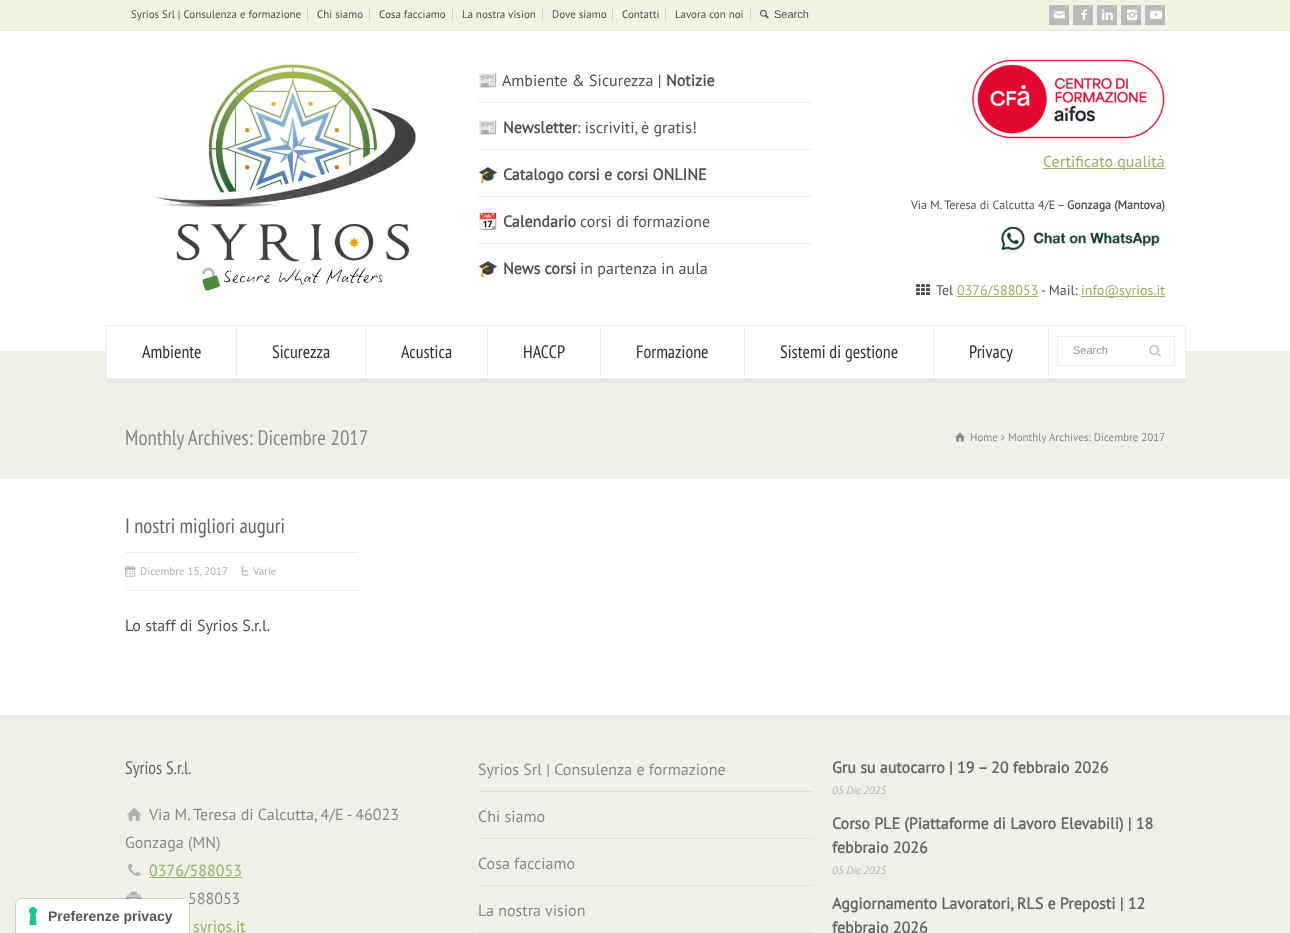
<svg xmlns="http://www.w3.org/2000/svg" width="1290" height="933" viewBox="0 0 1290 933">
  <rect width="100%" height="100%" fill="#ffffff"/>
  <rect x="0" y="719" width="1290" height="214" fill="#eff1e9"/>
  <image x="126" y="891" width="16" height="8" href="img19.png"/>
  <text x="188" y="904" font-family="PT Sans" font-size="16" fill="#888888">588053</text>
  <path d="M22 898.5H183C186.5 898.5 189.5 901.5 189.5 905V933.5H15.5V905C15.5 901.5 18.5 898.5 22 898.5Z" fill="none" stroke="#000000" stroke-opacity="0.15"/>
  <path d="M22 899H183C186.5 899 189 901.5 189 905V933H16V905C16 901.5 18.5 899 22 899Z" fill="#ffffff"/>
  <image x="29" y="907" width="8" height="18" href="img1.png"/>
  <text x="48" y="921" font-family="Liberation Sans" font-size="14" font-weight="bold" fill="#595959">Preferenze privacy</text>
  <rect x="0" y="0" width="1290" height="30" fill="#f0f3e2"/>
  <rect x="0" y="30" width="1290" height="1" fill="#e6e9d9"/>
  <rect x="307" y="9" width="1" height="11" fill="#cdcdcd"/>
  <text x="131" y="18" font-family="PT Sans" font-size="11" fill="#505050">Syrios Srl | Consulenza e formazione</text>
  <rect x="369" y="9" width="1" height="11" fill="#cdcdcd"/>
  <text x="317" y="18" font-family="PT Sans" font-size="11" fill="#505050">Chi siamo</text>
  <rect x="452" y="9" width="1" height="11" fill="#cdcdcd"/>
  <text x="379" y="18" font-family="PT Sans" font-size="11" fill="#505050">Cosa facciamo</text>
  <rect x="542" y="9" width="1" height="11" fill="#cdcdcd"/>
  <text x="462" y="18" font-family="PT Sans" font-size="11" fill="#505050">La nostra vision</text>
  <rect x="612" y="9" width="1" height="11" fill="#cdcdcd"/>
  <text x="552" y="18" font-family="PT Sans" font-size="11" fill="#505050">Dove siamo</text>
  <rect x="665" y="9" width="1" height="11" fill="#cdcdcd"/>
  <text x="622" y="18" font-family="PT Sans" font-size="11" fill="#505050">Contatti</text>
  <rect x="750" y="9" width="1" height="11" fill="#cdcdcd"/>
  <text x="675" y="18" font-family="PT Sans" font-size="11" fill="#505050">Lavora con noi</text>
  <image x="760" y="9" width="9" height="10" href="img2.png"/>
  <text x="774" y="18" font-family="Liberation Sans" font-size="11" fill="#505050">Search</text>
  <rect x="1049" y="5" width="20" height="20" fill="#bbbbbb"/>
  <image x="1054" y="11" width="11" height="8" href="img3.png"/>
  <rect x="1073" y="5" width="20" height="20" fill="#bbbbbb"/>
  <image x="1081" y="9" width="6" height="12" href="img4.png"/>
  <rect x="1097" y="5" width="20" height="20" fill="#bbbbbb"/>
  <image x="1102" y="9" width="11" height="12" href="img5.png"/>
  <rect x="1121" y="5" width="20" height="20" fill="#bbbbbb"/>
  <image x="1127" y="9" width="11" height="11" href="img6.png"/>
  <rect x="1145" y="5" width="20" height="20" fill="#bbbbbb"/>
  <image x="1150" y="10" width="12" height="9" href="img7.png"/>
  <image x="155" y="63" width="262" height="228" href="img8.png"/>
  <rect x="478" y="102" width="334" height="1" fill="#ededed"/>
  <text x="478" y="86" font-family="Noto Color Emoji" font-size="16" fill="#505050">📰</text>
  <text x="502" y="86" font-family="PT Sans" font-size="16" fill="#505050">Ambiente &amp; Sicurezza |</text>
  <text x="666" y="86" font-family="PT Sans" font-size="16" font-weight="bold" fill="#505050">Notizie</text>
  <rect x="478" y="149" width="334" height="1" fill="#ededed"/>
  <text x="478" y="133" font-family="Noto Color Emoji" font-size="16" fill="#505050">📰</text>
  <text x="503" y="133" font-family="PT Sans" font-size="16" font-weight="bold" fill="#505050">Newsletter</text>
  <text x="577" y="133" font-family="PT Sans" font-size="16" fill="#505050">: iscriviti, è gratis!</text>
  <rect x="478" y="196" width="334" height="1" fill="#ededed"/>
  <text x="478" y="180" font-family="Noto Color Emoji" font-size="16" fill="#505050">🎓</text>
  <text x="503" y="180" font-family="PT Sans" font-size="16" font-weight="bold" fill="#505050">Catalogo corsi e corsi ONLINE</text>
  <rect x="478" y="243" width="334" height="1" fill="#ededed"/>
  <text x="478" y="227" font-family="Noto Color Emoji" font-size="16" fill="#505050">📆</text>
  <text x="503" y="227" font-family="PT Sans" font-size="16" font-weight="bold" fill="#505050">Calendario</text>
  <text x="580" y="227" font-family="PT Sans" font-size="16" fill="#505050">corsi di formazione</text>
  <text x="478" y="274" font-family="Noto Color Emoji" font-size="16" fill="#505050">🎓</text>
  <text x="503" y="274" font-family="PT Sans" font-size="16" font-weight="bold" fill="#505050">News corsi</text>
  <text x="580" y="274" font-family="PT Sans" font-size="16" fill="#505050">in partenza in aula</text>
  <image x="971" y="59" width="194" height="80" href="img9.png"/>
  <rect x="1043" y="168" width="122" height="1" fill="#97b164"/>
  <text x="1043" y="167" font-family="PT Sans" font-size="16" fill="#97b164">Certificato qualità</text>
  <text x="911" y="209" font-family="PT Sans" font-size="12" fill="#505050">Via M. Teresa di Calcutta 4/E –</text>
  <text x="1067" y="209" font-family="PT Sans" font-size="12" font-weight="bold" fill="#505050">Gonzaga (Mantova)</text>
  <image x="1000" y="224" width="163" height="29" href="img10.png"/>
  <image x="916" y="284" width="14" height="12" href="img11.png"/>
  <text x="936" y="295" font-family="PT Sans" font-size="14" fill="#505050">Tel</text>
  <rect x="957" y="296" width="81" height="1" fill="#97b164"/>
  <text x="957" y="295" font-family="PT Sans" font-size="14" fill="#97b164">0376/588053</text>
  <text x="1041" y="295" font-family="PT Sans" font-size="14" fill="#505050">- Mail:</text>
  <rect x="1081" y="296" width="84" height="1" fill="#97b164"/>
  <text x="1081" y="295" font-family="PT Sans" font-size="14" fill="#97b164">info@syrios.it</text>
  <rect x="0" y="352" width="1290" height="126" fill="#eff1e9"/>
  <rect x="106" y="379" width="1080" height="4" fill="#e5e7e0"/>
  <rect x="0" y="351" width="1290" height="1" fill="#eeeeee"/>
  <rect x="107" y="351" width="1078" height="27" fill="#ffffff"/>
  <rect x="106" y="325" width="1080" height="1" fill="#eeeeee"/>
  <rect x="1185" y="325" width="1" height="54" fill="#eeeeee"/>
  <rect x="106" y="378" width="1080" height="1" fill="#eeeeee"/>
  <rect x="236" y="326" width="1" height="52" fill="#eeeeee"/>
  <rect x="106" y="326" width="1" height="52" fill="#eeeeee"/>
  <text x="142" y="358" font-family="PT Sans Narrow" font-size="18" fill="#303030">Ambiente</text>
  <rect x="365" y="326" width="1" height="52" fill="#eeeeee"/>
  <text x="272" y="358" font-family="PT Sans Narrow" font-size="18" fill="#303030">Sicurezza</text>
  <rect x="487" y="326" width="1" height="52" fill="#eeeeee"/>
  <text x="401" y="358" font-family="PT Sans Narrow" font-size="18" fill="#303030">Acustica</text>
  <rect x="600" y="326" width="1" height="52" fill="#eeeeee"/>
  <text x="523" y="358" font-family="PT Sans Narrow" font-size="18" fill="#303030">HACCP</text>
  <rect x="744" y="326" width="1" height="52" fill="#eeeeee"/>
  <text x="636" y="358" font-family="PT Sans Narrow" font-size="18" fill="#303030">Formazione</text>
  <rect x="933" y="326" width="1" height="52" fill="#eeeeee"/>
  <text x="780" y="358" font-family="PT Sans Narrow" font-size="18" fill="#303030">Sistemi di gestione</text>
  <rect x="1048" y="326" width="1" height="52" fill="#eeeeee"/>
  <text x="969" y="358" font-family="PT Sans Narrow" font-size="18" fill="#303030">Privacy</text>
  <rect x="1057.5" y="336.5" width="117" height="29" fill="none" stroke="#eeeeee"/>
  <text x="1073" y="354" font-family="Liberation Sans" font-size="11" fill="#929292">Search</text>
  <image x="1149" y="345" width="12" height="12" href="img12.png"/>
  <rect x="0" y="478" width="1290" height="1" fill="#eeeeee"/>
  <text x="125" y="445" font-family="PT Sans Narrow" font-size="21" fill="#888888">Monthly Archives: Dicembre 2017</text>
  <image x="955" y="432" width="10" height="10" href="img13.png"/>
  <text x="970" y="441" font-family="PT Sans" font-size="11" fill="#888888">Home</text>
  <image x="1001" y="434" width="4" height="7" href="img14.png"/>
  <text x="1008" y="441" font-family="PT Sans" font-size="11" fill="#888888">Monthly Archives: Dicembre 2017</text>
  <rect x="125" y="590" width="233" height="1" fill="#eeeeee"/>
  <text x="125" y="533" font-family="PT Sans Narrow" font-size="20.75" fill="#666666">I nostri migliori auguri</text>
  <rect x="125" y="552" width="233" height="1" fill="#eeeeee"/>
  <image x="125" y="565" width="11" height="12" href="img15.png"/>
  <text x="140" y="575" font-family="PT Sans" font-size="11" fill="#afafaf">Dicembre 15, 2017</text>
  <image x="241" y="566" width="7" height="11" href="img16.png"/>
  <text x="253" y="575" font-family="PT Sans" font-size="11" fill="#afafaf">Varie</text>
  <text x="125" y="631" font-family="PT Sans" font-size="16" fill="#505050">Lo staff di Syrios S.r.l.</text>
  <rect x="0" y="715" width="1290" height="4" fill="#eaece4"/>
  <text x="125" y="774" font-family="PT Sans Narrow" font-size="18" fill="#666666">Syrios S.r.l.</text>
  <image x="127" y="808" width="15" height="13" href="img17.png"/>
  <text x="149" y="820" font-family="PT Sans" font-size="16" fill="#888888">Via M. Teresa di Calcutta, 4/E - 46023</text>
  <text x="125" y="848" font-family="PT Sans" font-size="16" fill="#888888">Gonzaga (MN)</text>
  <image x="128" y="863" width="13" height="14" href="img18.png"/>
  <rect x="149" y="877" width="93" height="1" fill="#97b164"/>
  <text x="149" y="876" font-family="PT Sans" font-size="16" fill="#97b164">0376/588053</text>
  <text x="193" y="932" font-family="PT Sans" font-size="16" fill="#97b164">syrios.it</text>
  <rect x="478" y="791" width="334" height="1" fill="#dee0d9"/>
  <text x="478" y="775" font-family="PT Sans" font-size="16" fill="#888888">Syrios Srl | Consulenza e formazione</text>
  <rect x="478" y="838" width="334" height="1" fill="#dee0d9"/>
  <text x="478" y="822" font-family="PT Sans" font-size="16" fill="#888888">Chi siamo</text>
  <rect x="478" y="885" width="334" height="1" fill="#dee0d9"/>
  <text x="478" y="869" font-family="PT Sans" font-size="16" fill="#888888">Cosa facciamo</text>
  <rect x="478" y="932" width="334" height="1" fill="#dee0d9"/>
  <text x="478" y="916" font-family="PT Sans" font-size="16" fill="#888888">La nostra vision</text>
  <text x="832" y="773" font-family="PT Sans" font-size="16" font-weight="bold" fill="#666666">Gru su autocarro | 19 – 20 febbraio 2026</text>
  <text x="832" y="794" font-family="PT Sans" font-size="11" font-style="italic" fill="#afafaf">05 Dic 2025</text>
  <text x="832" y="829" font-family="PT Sans" font-size="16" font-weight="bold" fill="#666666">Corso PLE (Piattaforme di Lavoro Elevabili) | 18</text>
  <text x="832" y="853" font-family="PT Sans" font-size="16" font-weight="bold" fill="#666666">febbraio 2026</text>
  <text x="832" y="874" font-family="PT Sans" font-size="11" font-style="italic" fill="#afafaf">05 Dic 2025</text>
  <text x="832" y="909" font-family="PT Sans" font-size="16" font-weight="bold" fill="#666666">Aggiornamento Lavoratori, RLS e Preposti | 12</text>
  <text x="832" y="933" font-family="PT Sans" font-size="16" font-weight="bold" fill="#666666">febbraio 2026</text>
</svg>
